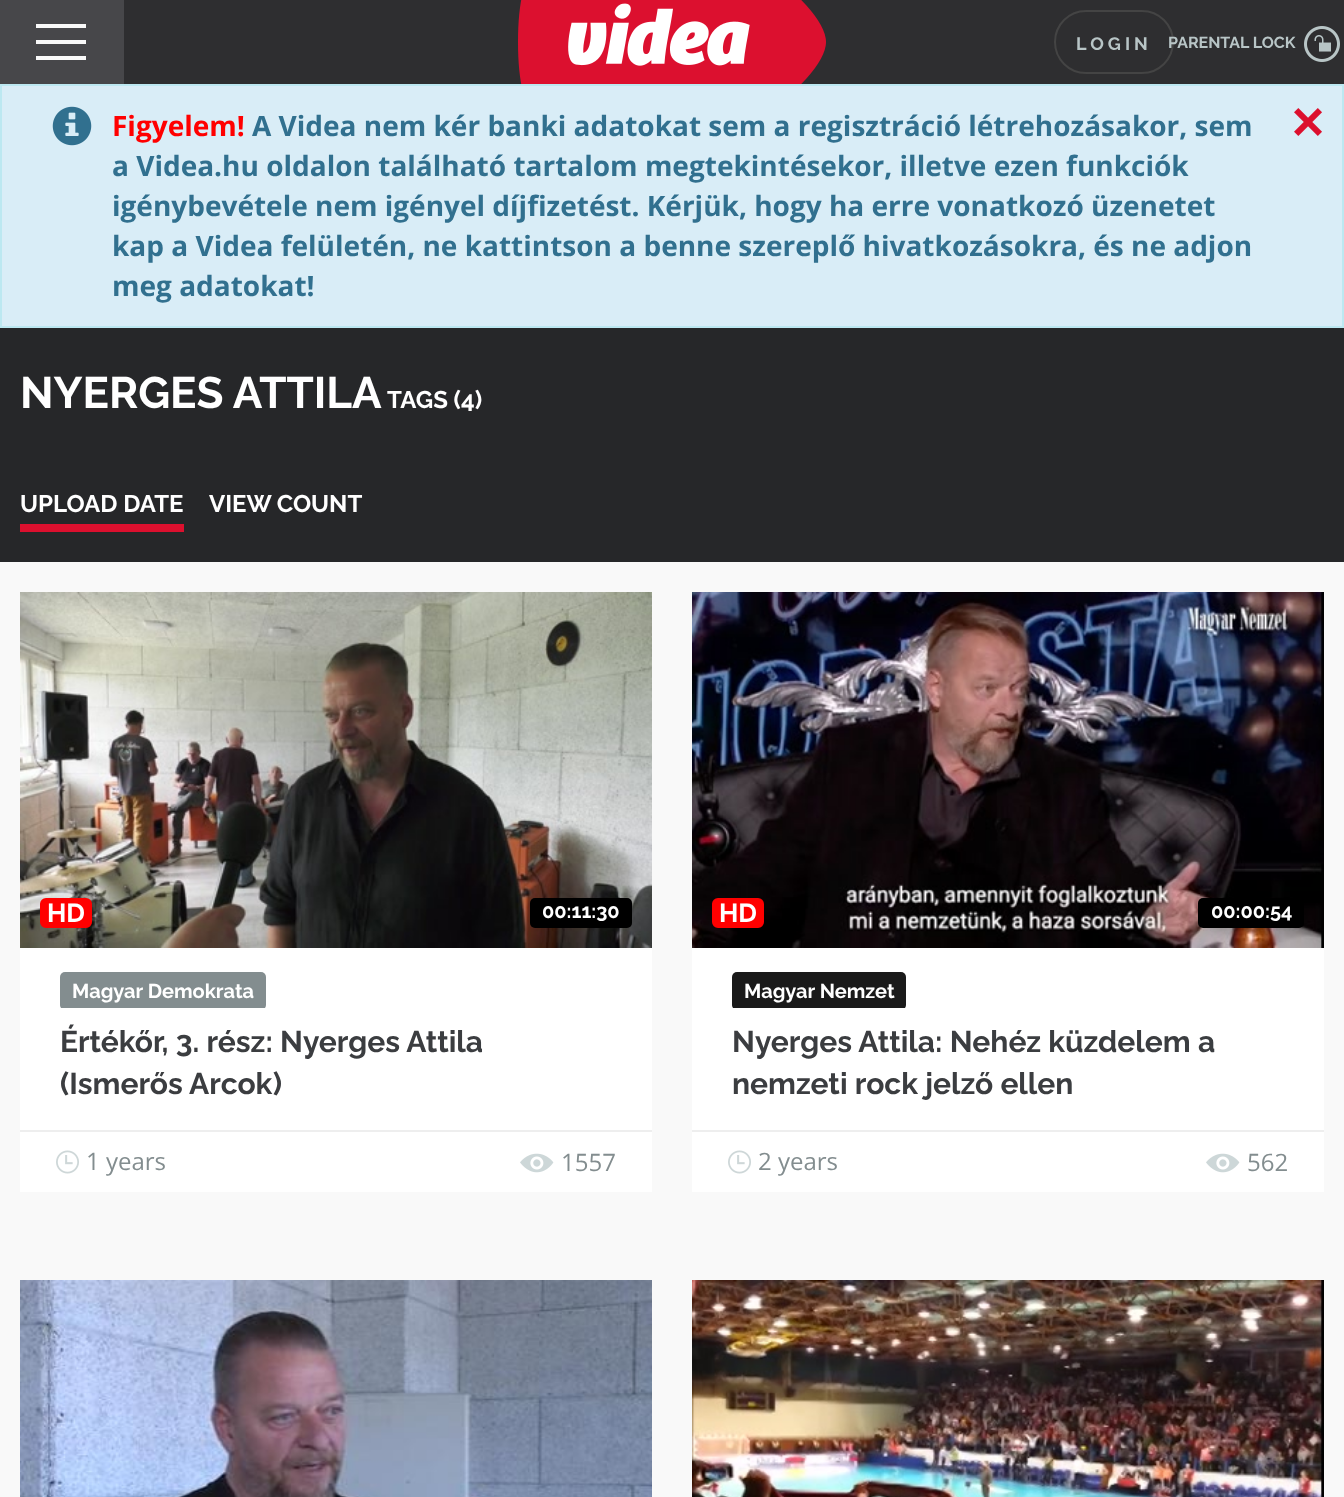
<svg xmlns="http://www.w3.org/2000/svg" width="1344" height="1497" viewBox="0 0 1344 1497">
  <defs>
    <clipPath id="clip1"><rect x="60" y="968" width="206" height="40"/></clipPath>
    <clipPath id="clip2"><rect x="732" y="968" width="174" height="40"/></clipPath>
  </defs>
  <rect width="100%" height="100%" fill="#d9edf7"/>
  <rect x="124" y="0" width="1220" height="84" fill="#2e2e30"/>
  <image x="518" y="0" width="308" height="84" href="img1.png"/>
  <rect x="0" y="0" width="124" height="84" fill="#47474a"/>
  <path d="M36 56V60H86V56ZM36 40V44H86V40ZM36 24V28H86V24Z" fill="#f9f9f9"/>
  <rect x="1055" y="11" width="118" height="62" rx="31" fill="none" stroke="#444444" stroke-width="2"/>
  <text x="1076" y="50" font-family="Raleway" font-size="18" font-weight="bold" letter-spacing="4" fill="#b8c5c6">LOGIN</text>
  <text x="1168" y="48" font-family="Raleway" font-size="16" font-weight="bold" fill="#b8c5c6">PARENTAL LOCK</text>
  <image x="1304" y="26" width="36" height="36" href="img2.png"/>
  <rect x="1" y="85" width="1342" height="242" fill="none" stroke="#bce8f1" stroke-width="2"/>
  <image x="52" y="106" width="40" height="40" href="img3.png"/>
  <text x="112" y="136" font-family="Open Sans" font-size="28" font-weight="bold" fill="#ff0000">Figyelem!</text>
  <text x="252" y="136" font-family="Open Sans" font-size="28" font-weight="bold" fill="#31708f">A Videa nem kér banki adatokat sem a regisztráció létrehozásakor, sem</text>
  <text x="112" y="176" font-family="Open Sans" font-size="28" font-weight="bold" fill="#31708f">a Videa.hu oldalon található tartalom megtekintésekor, illetve ezen funkciók</text>
  <text x="112" y="216" font-family="Open Sans" font-size="28" font-weight="bold" fill="#31708f">igénybevétele nem igényel díjfizetést. Kérjük, hogy ha erre vonatkozó üzenetet</text>
  <text x="112" y="256" font-family="Open Sans" font-size="28" font-weight="bold" fill="#31708f">kap a Videa felületén, ne kattintson a benne szereplő hivatkozásokra, és ne adjon</text>
  <text x="112" y="296" font-family="Open Sans" font-size="28" font-weight="bold" fill="#31708f">meg adatokat!</text>
  <image x="1294" y="108" width="28" height="28" href="img4.png"/>
  <rect x="0" y="328" width="1344" height="234" fill="#262729"/>
  <text x="20" y="408" font-family="Raleway" font-size="44" font-weight="bold" fill="#ffffff">NYERGES ATTILA</text>
  <text x="387" y="408" font-family="Raleway" font-size="24" font-weight="bold" fill="#ffffff">TAGS (4)</text>
  <rect x="20" y="524" width="164" height="8" fill="#dc102e"/>
  <text x="20" y="512" font-family="Raleway" font-size="24" font-weight="bold" fill="#ffffff">UPLOAD DATE</text>
  <text x="209" y="512" font-family="Raleway" font-size="24" font-weight="bold" fill="#ffffff">VIEW COUNT</text>
  <rect x="0" y="562" width="1344" height="935" fill="#f9f9f9"/>
  <rect x="20" y="948" width="632" height="244" fill="#ffffff"/>
  <image x="20" y="592" width="632" height="356" href="img5.png"/>
  <rect x="41" y="899" width="50" height="28" rx="5" fill="#ff0000" stroke="#ff0000" stroke-width="2"/>
  <text x="47" y="922" font-family="Raleway" font-size="26" font-weight="bold" fill="#ffffff">HD</text>
  <rect x="530" y="898" width="102" height="30" rx="5" fill="#000000"/>
  <text x="542" y="918" font-family="Raleway" font-size="20" font-weight="bold" fill="#ffffff">00:11:30</text>
  <g clip-path="url(#clip1)">
    <rect x="60" y="972" width="206" height="38" rx="5" fill="#838d8f"/>
  </g>
  <text x="72" y="998" font-family="Raleway" font-size="20" font-weight="bold" fill="#ffffff">Magyar Demokrata</text>
  <text x="60" y="1052" font-family="Raleway" font-size="30" font-weight="bold" fill="#3b3d40">Értékőr, 3. rész: Nyerges Attila</text>
  <text x="60" y="1094" font-family="Raleway" font-size="30" font-weight="bold" fill="#3b3d40">(Ismerős Arcok)</text>
  <rect x="20" y="1130" width="632" height="2" fill="#eeeeee"/>
  <image x="56" y="1150" width="23" height="24" href="img6.png"/>
  <text x="86" y="1170" font-family="Open Sans" font-size="24" fill="#838d8f">1 years</text>
  <image x="520" y="1153" width="34" height="20" href="img7.png"/>
  <text x="561" y="1171" font-family="Open Sans" font-size="24" fill="#838d8f">1557</text>
  <rect x="692" y="948" width="632" height="244" fill="#ffffff"/>
  <image x="692" y="592" width="632" height="356" href="img8.png"/>
  <rect x="713" y="899" width="50" height="28" rx="5" fill="#ff0000" stroke="#ff0000" stroke-width="2"/>
  <text x="719" y="922" font-family="Raleway" font-size="26" font-weight="bold" fill="#ffffff">HD</text>
  <rect x="1198" y="898" width="106" height="30" rx="5" fill="#000000"/>
  <text x="1211" y="918" font-family="Raleway" font-size="20" font-weight="bold" fill="#ffffff">00:00:54</text>
  <g clip-path="url(#clip2)">
    <rect x="732" y="972" width="174" height="38" rx="5" fill="#1a1a1a"/>
  </g>
  <text x="744" y="998" font-family="Raleway" font-size="20" font-weight="bold" fill="#ffffff">Magyar Nemzet</text>
  <text x="732" y="1052" font-family="Raleway" font-size="30" font-weight="bold" fill="#3b3d40">Nyerges Attila: Nehéz küzdelem a</text>
  <text x="732" y="1094" font-family="Raleway" font-size="30" font-weight="bold" fill="#3b3d40">nemzeti rock jelző ellen</text>
  <rect x="692" y="1130" width="632" height="2" fill="#eeeeee"/>
  <image x="728" y="1150" width="23" height="24" href="img6.png"/>
  <text x="758" y="1170" font-family="Open Sans" font-size="24" fill="#838d8f">2 years</text>
  <image x="1206" y="1153" width="34" height="20" href="img7.png"/>
  <text x="1247" y="1171" font-family="Open Sans" font-size="24" fill="#838d8f">562</text>
  <image x="20" y="1280" width="632" height="217" href="img9.png"/>
  <image x="692" y="1280" width="632" height="217" href="img10.png"/>
</svg>
